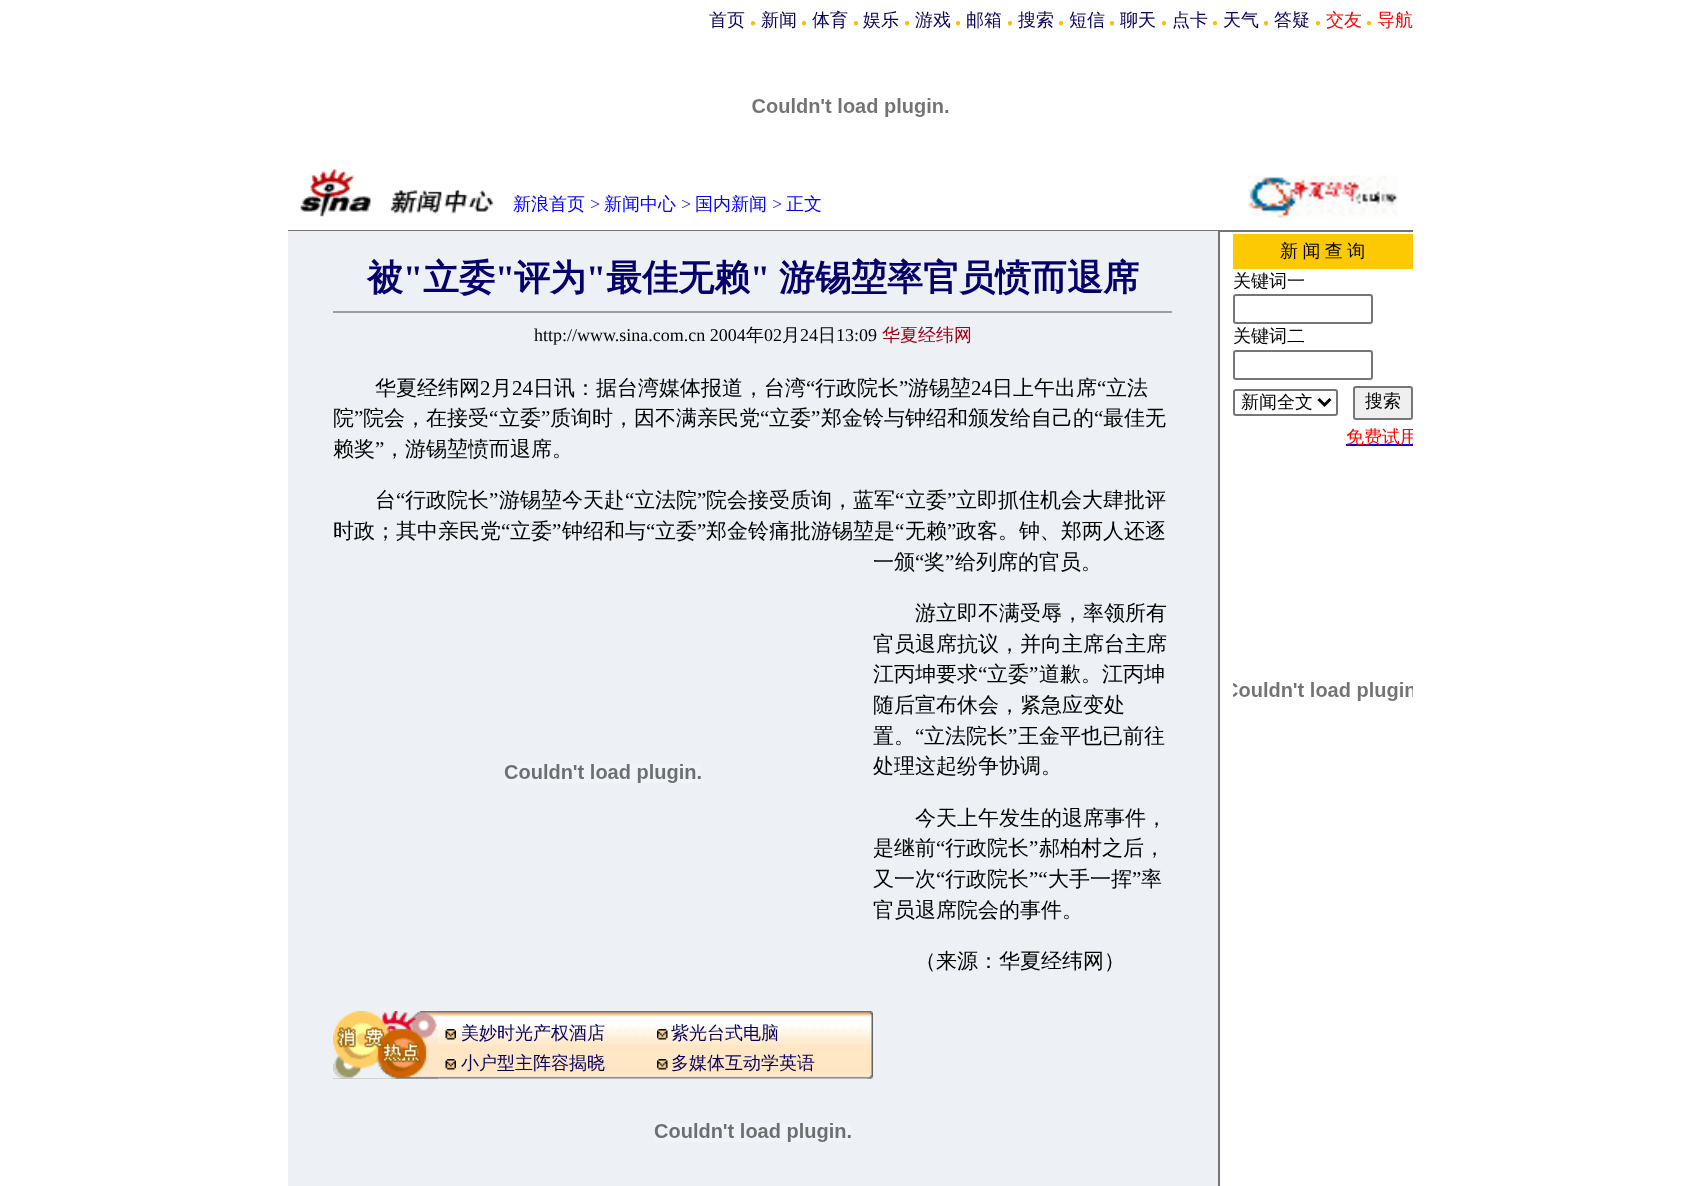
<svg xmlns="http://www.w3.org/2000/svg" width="1700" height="1186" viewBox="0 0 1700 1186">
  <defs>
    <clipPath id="clip1"><rect x="1233" y="425" width="180" height="25"/></clipPath>
  </defs>
  <rect width="100%" height="100%" fill="#ffffff"/>
  <text x="709" y="26" font-family="WenQuanYi Zen Hei" font-size="18" font-weight="500" fill="#07015b">首页</text>
  <text x="750" y="26" font-family="Liberation Serif" font-size="10" fill="#ffbd00">●</text>
  <text x="761" y="26" font-family="WenQuanYi Zen Hei" font-size="18" font-weight="500" fill="#07015b">新闻</text>
  <text x="801" y="26" font-family="Liberation Serif" font-size="10" fill="#ffbd00">●</text>
  <text x="812" y="26" font-family="WenQuanYi Zen Hei" font-size="18" font-weight="500" fill="#07015b">体育</text>
  <text x="853" y="26" font-family="Liberation Serif" font-size="10" fill="#ffbd00">●</text>
  <text x="863" y="26" font-family="WenQuanYi Zen Hei" font-size="18" font-weight="500" fill="#07015b">娱乐</text>
  <text x="904" y="26" font-family="Liberation Serif" font-size="10" fill="#ffbd00">●</text>
  <text x="915" y="26" font-family="WenQuanYi Zen Hei" font-size="18" font-weight="500" fill="#07015b">游戏</text>
  <text x="955" y="26" font-family="Liberation Serif" font-size="10" fill="#ffbd00">●</text>
  <text x="966" y="26" font-family="WenQuanYi Zen Hei" font-size="18" font-weight="500" fill="#07015b">邮箱</text>
  <text x="1007" y="26" font-family="Liberation Serif" font-size="10" fill="#ffbd00">●</text>
  <text x="1018" y="26" font-family="WenQuanYi Zen Hei" font-size="18" font-weight="500" fill="#07015b">搜索</text>
  <text x="1058" y="26" font-family="Liberation Serif" font-size="10" fill="#ffbd00">●</text>
  <text x="1069" y="26" font-family="WenQuanYi Zen Hei" font-size="18" font-weight="500" fill="#07015b">短信</text>
  <text x="1109" y="26" font-family="Liberation Serif" font-size="10" fill="#ffbd00">●</text>
  <text x="1120" y="26" font-family="WenQuanYi Zen Hei" font-size="18" font-weight="500" fill="#07015b">聊天</text>
  <text x="1161" y="26" font-family="Liberation Serif" font-size="10" fill="#ffbd00">●</text>
  <text x="1172" y="26" font-family="WenQuanYi Zen Hei" font-size="18" font-weight="500" fill="#07015b">点卡</text>
  <text x="1212" y="26" font-family="Liberation Serif" font-size="10" fill="#ffbd00">●</text>
  <text x="1223" y="26" font-family="WenQuanYi Zen Hei" font-size="18" font-weight="500" fill="#07015b">天气</text>
  <text x="1263" y="26" font-family="Liberation Serif" font-size="10" fill="#ffbd00">●</text>
  <text x="1274" y="26" font-family="WenQuanYi Zen Hei" font-size="18" font-weight="500" fill="#07015b">答疑</text>
  <text x="1315" y="26" font-family="Liberation Serif" font-size="10" fill="#ffbd00">●</text>
  <text x="1326" y="26" font-family="WenQuanYi Zen Hei" font-size="18" font-weight="500" fill="#ff0000">交友</text>
  <text x="1366" y="26" font-family="Liberation Serif" font-size="10" fill="#ffbd00">●</text>
  <text x="1377" y="26" font-family="WenQuanYi Zen Hei" font-size="18" font-weight="500" fill="#ff0000">导航</text>
  <image x="752" y="98" width="197" height="19" href="img1.png"/>
  <image x="300" y="169" width="194" height="48" href="img2.png"/>
  <text x="513" y="210" font-family="WenQuanYi Zen Hei" font-size="18" font-weight="500" fill="#0000ff">新浪首页</text>
  <text x="590" y="210" font-family="Liberation Serif" font-size="18" fill="#0000ff">&gt;</text>
  <text x="604" y="210" font-family="WenQuanYi Zen Hei" font-size="18" font-weight="500" fill="#0000ff">新闻中心</text>
  <text x="681" y="210" font-family="Liberation Serif" font-size="18" fill="#0000ff">&gt;</text>
  <text x="695" y="210" font-family="WenQuanYi Zen Hei" font-size="18" font-weight="500" fill="#0000ff">国内新闻</text>
  <text x="772" y="210" font-family="Liberation Serif" font-size="18" fill="#0000ff">&gt;</text>
  <text x="786" y="210" font-family="WenQuanYi Zen Hei" font-size="18" font-weight="500" fill="#0000ff">正文</text>
  <image x="1248" y="175" width="150" height="43" href="img3.png"/>
  <rect x="288" y="230" width="1125" height="2" fill="#747474"/>
  <rect x="288" y="231" width="930" height="955" fill="#edf0f5"/>
  <text x="367" y="290" font-family="WenQuanYi Zen Hei" font-size="36" font-weight="bold" fill="#05006c">被</text>
  <text x="403" y="290" font-family="Liberation Serif" font-size="36" font-weight="bold" fill="#05006c">"</text>
  <text x="423" y="290" font-family="WenQuanYi Zen Hei" font-size="36" font-weight="bold" fill="#05006c">立委</text>
  <text x="495" y="290" font-family="Liberation Serif" font-size="36" font-weight="bold" fill="#05006c">"</text>
  <text x="514" y="290" font-family="WenQuanYi Zen Hei" font-size="36" font-weight="bold" fill="#05006c">评为</text>
  <text x="586" y="290" font-family="Liberation Serif" font-size="36" font-weight="bold" fill="#05006c">"</text>
  <text x="606" y="290" font-family="WenQuanYi Zen Hei" font-size="36" font-weight="bold" fill="#05006c">最佳无赖</text>
  <text x="750" y="290" font-family="Liberation Serif" font-size="36" font-weight="bold" fill="#05006c">"</text>
  <text x="779" y="290" font-family="WenQuanYi Zen Hei" font-size="36" font-weight="bold" fill="#05006c">游锡堃率官员愤而退席</text>
  <rect x="333" y="311" width="840" height="2" fill="#9f9f9f"/>
  <rect x="1172" y="311" width="2" height="2" fill="#eeeeee"/>
  <text x="534" y="341" font-family="Liberation Serif" font-size="18" fill="#000000">http://www.sina.com.cn 2004</text>
  <text x="746" y="341" font-family="WenQuanYi Zen Hei" font-size="18" font-weight="500" fill="#000000">年</text>
  <text x="764" y="341" font-family="Liberation Serif" font-size="18" fill="#000000">02</text>
  <text x="782" y="341" font-family="WenQuanYi Zen Hei" font-size="18" font-weight="500" fill="#000000">月</text>
  <text x="800" y="341" font-family="Liberation Serif" font-size="18" fill="#000000">24</text>
  <text x="818" y="341" font-family="WenQuanYi Zen Hei" font-size="18" font-weight="500" fill="#000000">日</text>
  <text x="836" y="341" font-family="Liberation Serif" font-size="18" fill="#000000">13:09</text>
  <text x="882" y="341" font-family="WenQuanYi Zen Hei" font-size="18" font-weight="500" fill="#a20010">华夏经纬网</text>
  <text x="375" y="395" font-family="WenQuanYi Zen Hei" font-size="21" font-weight="500" fill="#000000">华夏经纬网</text>
  <text x="480" y="395" font-family="Liberation Serif" font-size="21" fill="#000000">2</text>
  <text x="491" y="395" font-family="WenQuanYi Zen Hei" font-size="21" font-weight="500" fill="#000000">月</text>
  <text x="512" y="395" font-family="Liberation Serif" font-size="21" fill="#000000">24</text>
  <text x="533" y="395" font-family="WenQuanYi Zen Hei" font-size="21" font-weight="500" fill="#000000">日讯：据台湾媒体报道，台湾</text>
  <text x="806" y="395" font-family="Liberation Serif" font-size="21" fill="#000000">“</text>
  <text x="815" y="395" font-family="WenQuanYi Zen Hei" font-size="21" font-weight="500" fill="#000000">行政院长</text>
  <text x="899" y="395" font-family="Liberation Serif" font-size="21" fill="#000000">”</text>
  <text x="908" y="395" font-family="WenQuanYi Zen Hei" font-size="21" font-weight="500" fill="#000000">游锡堃</text>
  <text x="971" y="395" font-family="Liberation Serif" font-size="21" fill="#000000">24</text>
  <text x="992" y="395" font-family="WenQuanYi Zen Hei" font-size="21" font-weight="500" fill="#000000">日上午出席</text>
  <text x="1097" y="395" font-family="Liberation Serif" font-size="21" fill="#000000">“</text>
  <text x="1106" y="395" font-family="WenQuanYi Zen Hei" font-size="21" font-weight="500" fill="#000000">立法</text>
  <text x="333" y="425" font-family="WenQuanYi Zen Hei" font-size="21" font-weight="500" fill="#000000">院</text>
  <text x="354" y="425" font-family="Liberation Serif" font-size="21" fill="#000000">”</text>
  <text x="363" y="425" font-family="WenQuanYi Zen Hei" font-size="21" font-weight="500" fill="#000000">院会，在接受</text>
  <text x="489" y="425" font-family="Liberation Serif" font-size="21" fill="#000000">“</text>
  <text x="499" y="425" font-family="WenQuanYi Zen Hei" font-size="21" font-weight="500" fill="#000000">立委</text>
  <text x="541" y="425" font-family="Liberation Serif" font-size="21" fill="#000000">”</text>
  <text x="550" y="425" font-family="WenQuanYi Zen Hei" font-size="21" font-weight="500" fill="#000000">质询时，因不满亲民党</text>
  <text x="760" y="425" font-family="Liberation Serif" font-size="21" fill="#000000">“</text>
  <text x="769" y="425" font-family="WenQuanYi Zen Hei" font-size="21" font-weight="500" fill="#000000">立委</text>
  <text x="811" y="425" font-family="Liberation Serif" font-size="21" fill="#000000">”</text>
  <text x="821" y="425" font-family="WenQuanYi Zen Hei" font-size="21" font-weight="500" fill="#000000">郑金铃与钟绍和颁发给自己的</text>
  <text x="1094" y="425" font-family="Liberation Serif" font-size="21" fill="#000000">“</text>
  <text x="1103" y="425" font-family="WenQuanYi Zen Hei" font-size="21" font-weight="500" fill="#000000">最佳无</text>
  <text x="333" y="456" font-family="WenQuanYi Zen Hei" font-size="21" font-weight="500" fill="#000000">赖奖</text>
  <text x="375" y="456" font-family="Liberation Serif" font-size="21" fill="#000000">”</text>
  <text x="384" y="456" font-family="WenQuanYi Zen Hei" font-size="21" font-weight="500" fill="#000000">，游锡堃愤而退席。</text>
  <text x="375" y="507" font-family="WenQuanYi Zen Hei" font-size="21" font-weight="500" fill="#000000">台</text>
  <text x="396" y="507" font-family="Liberation Serif" font-size="21" fill="#000000">“</text>
  <text x="405" y="507" font-family="WenQuanYi Zen Hei" font-size="21" font-weight="500" fill="#000000">行政院长</text>
  <text x="489" y="507" font-family="Liberation Serif" font-size="21" fill="#000000">”</text>
  <text x="499" y="507" font-family="WenQuanYi Zen Hei" font-size="21" font-weight="500" fill="#000000">游锡堃今天赴</text>
  <text x="625" y="507" font-family="Liberation Serif" font-size="21" fill="#000000">“</text>
  <text x="634" y="507" font-family="WenQuanYi Zen Hei" font-size="21" font-weight="500" fill="#000000">立法院</text>
  <text x="697" y="507" font-family="Liberation Serif" font-size="21" fill="#000000">”</text>
  <text x="706" y="507" font-family="WenQuanYi Zen Hei" font-size="21" font-weight="500" fill="#000000">院会接受质询，蓝军</text>
  <text x="895" y="507" font-family="Liberation Serif" font-size="21" fill="#000000">“</text>
  <text x="905" y="507" font-family="WenQuanYi Zen Hei" font-size="21" font-weight="500" fill="#000000">立委</text>
  <text x="947" y="507" font-family="Liberation Serif" font-size="21" fill="#000000">”</text>
  <text x="956" y="507" font-family="WenQuanYi Zen Hei" font-size="21" font-weight="500" fill="#000000">立即抓住机会大肆批评</text>
  <text x="333" y="538" font-family="WenQuanYi Zen Hei" font-size="21" font-weight="500" fill="#000000">时政；其中亲民党</text>
  <text x="501" y="538" font-family="Liberation Serif" font-size="21" fill="#000000">“</text>
  <text x="510" y="538" font-family="WenQuanYi Zen Hei" font-size="21" font-weight="500" fill="#000000">立委</text>
  <text x="552" y="538" font-family="Liberation Serif" font-size="21" fill="#000000">”</text>
  <text x="562" y="538" font-family="WenQuanYi Zen Hei" font-size="21" font-weight="500" fill="#000000">钟绍和与</text>
  <text x="646" y="538" font-family="Liberation Serif" font-size="21" fill="#000000">“</text>
  <text x="655" y="538" font-family="WenQuanYi Zen Hei" font-size="21" font-weight="500" fill="#000000">立委</text>
  <text x="697" y="538" font-family="Liberation Serif" font-size="21" fill="#000000">”</text>
  <text x="706" y="538" font-family="WenQuanYi Zen Hei" font-size="21" font-weight="500" fill="#000000">郑金铃痛批游锡堃是</text>
  <text x="895" y="538" font-family="Liberation Serif" font-size="21" fill="#000000">“</text>
  <text x="905" y="538" font-family="WenQuanYi Zen Hei" font-size="21" font-weight="500" fill="#000000">无赖</text>
  <text x="947" y="538" font-family="Liberation Serif" font-size="21" fill="#000000">”</text>
  <text x="956" y="538" font-family="WenQuanYi Zen Hei" font-size="21" font-weight="500" fill="#000000">政客。钟、郑两人还逐</text>
  <text x="873" y="569" font-family="WenQuanYi Zen Hei" font-size="21" font-weight="500" fill="#000000">一颁</text>
  <text x="915" y="569" font-family="Liberation Serif" font-size="21" fill="#000000">“</text>
  <text x="924" y="569" font-family="WenQuanYi Zen Hei" font-size="21" font-weight="500" fill="#000000">奖</text>
  <text x="945" y="569" font-family="Liberation Serif" font-size="21" fill="#000000">”</text>
  <text x="955" y="569" font-family="WenQuanYi Zen Hei" font-size="21" font-weight="500" fill="#000000">给列席的官员。</text>
  <image x="504" y="764" width="197" height="19" href="img4.png"/>
  <image x="333" y="1011" width="540" height="68" href="img5.png"/>
  <image x="333" y="1011" width="105" height="68" href="img6.png"/>
  <image x="445" y="1029" width="11" height="11" href="img7.png"/>
  <text x="461" y="1039" font-family="WenQuanYi Zen Hei" font-size="18" font-weight="500" fill="#07015b">美妙时光产权酒店</text>
  <image x="657" y="1029" width="11" height="11" href="img8.png"/>
  <text x="671" y="1039" font-family="WenQuanYi Zen Hei" font-size="18" font-weight="500" fill="#07015b">紫光台式电脑</text>
  <image x="867" y="1011" width="6" height="68" href="img9.png"/>
  <image x="445" y="1059" width="11" height="11" href="img10.png"/>
  <text x="461" y="1069" font-family="WenQuanYi Zen Hei" font-size="18" font-weight="500" fill="#07015b">小户型主阵容揭晓</text>
  <image x="657" y="1059" width="11" height="11" href="img11.png"/>
  <text x="671" y="1069" font-family="WenQuanYi Zen Hei" font-size="18" font-weight="500" fill="#07015b">多媒体互动学英语</text>
  <text x="915" y="620" font-family="WenQuanYi Zen Hei" font-size="21" font-weight="500" fill="#000000">游立即不满受辱，率领所有</text>
  <text x="873" y="651" font-family="WenQuanYi Zen Hei" font-size="21" font-weight="500" fill="#000000">官员退席抗议，并向主席台主席</text>
  <text x="873" y="681" font-family="WenQuanYi Zen Hei" font-size="21" font-weight="500" fill="#000000">江丙坤要求</text>
  <text x="978" y="681" font-family="Liberation Serif" font-size="21" fill="#000000">“</text>
  <text x="987" y="681" font-family="WenQuanYi Zen Hei" font-size="21" font-weight="500" fill="#000000">立委</text>
  <text x="1029" y="681" font-family="Liberation Serif" font-size="21" fill="#000000">”</text>
  <text x="1039" y="681" font-family="WenQuanYi Zen Hei" font-size="21" font-weight="500" fill="#000000">道歉。江丙坤</text>
  <text x="873" y="712" font-family="WenQuanYi Zen Hei" font-size="21" font-weight="500" fill="#000000">随后宣布休会，紧急应变处</text>
  <text x="873" y="743" font-family="WenQuanYi Zen Hei" font-size="21" font-weight="500" fill="#000000">置。</text>
  <text x="915" y="743" font-family="Liberation Serif" font-size="21" fill="#000000">“</text>
  <text x="924" y="743" font-family="WenQuanYi Zen Hei" font-size="21" font-weight="500" fill="#000000">立法院长</text>
  <text x="1008" y="743" font-family="Liberation Serif" font-size="21" fill="#000000">”</text>
  <text x="1018" y="743" font-family="WenQuanYi Zen Hei" font-size="21" font-weight="500" fill="#000000">王金平也已前往</text>
  <text x="873" y="773" font-family="WenQuanYi Zen Hei" font-size="21" font-weight="500" fill="#000000">处理这起纷争协调。</text>
  <text x="915" y="825" font-family="WenQuanYi Zen Hei" font-size="21" font-weight="500" fill="#000000">今天上午发生的退席事件，</text>
  <text x="873" y="855" font-family="WenQuanYi Zen Hei" font-size="21" font-weight="500" fill="#000000">是继前</text>
  <text x="936" y="855" font-family="Liberation Serif" font-size="21" fill="#000000">“</text>
  <text x="945" y="855" font-family="WenQuanYi Zen Hei" font-size="21" font-weight="500" fill="#000000">行政院长</text>
  <text x="1029" y="855" font-family="Liberation Serif" font-size="21" fill="#000000">”</text>
  <text x="1039" y="855" font-family="WenQuanYi Zen Hei" font-size="21" font-weight="500" fill="#000000">郝柏村之后，</text>
  <text x="873" y="886" font-family="WenQuanYi Zen Hei" font-size="21" font-weight="500" fill="#000000">又一次</text>
  <text x="936" y="886" font-family="Liberation Serif" font-size="21" fill="#000000">“</text>
  <text x="945" y="886" font-family="WenQuanYi Zen Hei" font-size="21" font-weight="500" fill="#000000">行政院长</text>
  <text x="1029" y="886" font-family="Liberation Serif" font-size="21" fill="#000000">”“</text>
  <text x="1048" y="886" font-family="WenQuanYi Zen Hei" font-size="21" font-weight="500" fill="#000000">大手一挥</text>
  <text x="1132" y="886" font-family="Liberation Serif" font-size="21" fill="#000000">”</text>
  <text x="1141" y="886" font-family="WenQuanYi Zen Hei" font-size="21" font-weight="500" fill="#000000">率</text>
  <text x="873" y="917" font-family="WenQuanYi Zen Hei" font-size="21" font-weight="500" fill="#000000">官员退席院会的事件。</text>
  <text x="915" y="968" font-family="WenQuanYi Zen Hei" font-size="21" font-weight="500" fill="#000000">（来源：华夏经纬网）</text>
  <image x="654" y="1123" width="197" height="19" href="img4.png"/>
  <rect x="1218" y="231" width="2" height="955" fill="#747474"/>
  <rect x="1233" y="234" width="180" height="35" fill="#fdc903"/>
  <text x="1280" y="257" word-spacing="-1" font-family="WenQuanYi Zen Hei" font-size="18" font-weight="500" fill="#000000">新 闻 查 询</text>
  <text x="1233" y="287" font-family="WenQuanYi Zen Hei" font-size="18" font-weight="500" fill="#000000">关键词一</text>
  <rect x="1234" y="295" width="138" height="28" rx="2" fill="none" stroke="#767676" stroke-width="2"/>
  <text x="1233" y="342" font-family="WenQuanYi Zen Hei" font-size="18" font-weight="500" fill="#000000">关键词二</text>
  <rect x="1234" y="351" width="138" height="28" rx="2" fill="none" stroke="#767676" stroke-width="2"/>
  <rect x="1234" y="390" width="103" height="25" rx="2" fill="none" stroke="#767676" stroke-width="2"/>
  <path d="M1318.5 399L1324.5 405L1330.5 399" fill="none" stroke="#000000" stroke-width="3"/>
  <text x="1241" y="408" font-family="WenQuanYi Zen Hei" font-size="18" font-weight="500" fill="#000000">新闻全文</text>
  <rect x="1354" y="387" width="58" height="32" rx="2" fill="#efefef" stroke="#767676" stroke-width="2"/>
  <text x="1365" y="407" font-family="WenQuanYi Zen Hei" font-size="18" font-weight="500" fill="#000000">搜索</text>
  <rect x="1346" y="444" width="67" height="2" fill="#0000ff"/>
  <g clip-path="url(#clip1)">
    <text x="1346" y="443" font-family="WenQuanYi Zen Hei" font-size="18" font-weight="500" fill="#ff0000">免费试用</text>
  </g>
  <image x="1233" y="682" width="180" height="19" href="img12.png"/>
</svg>
